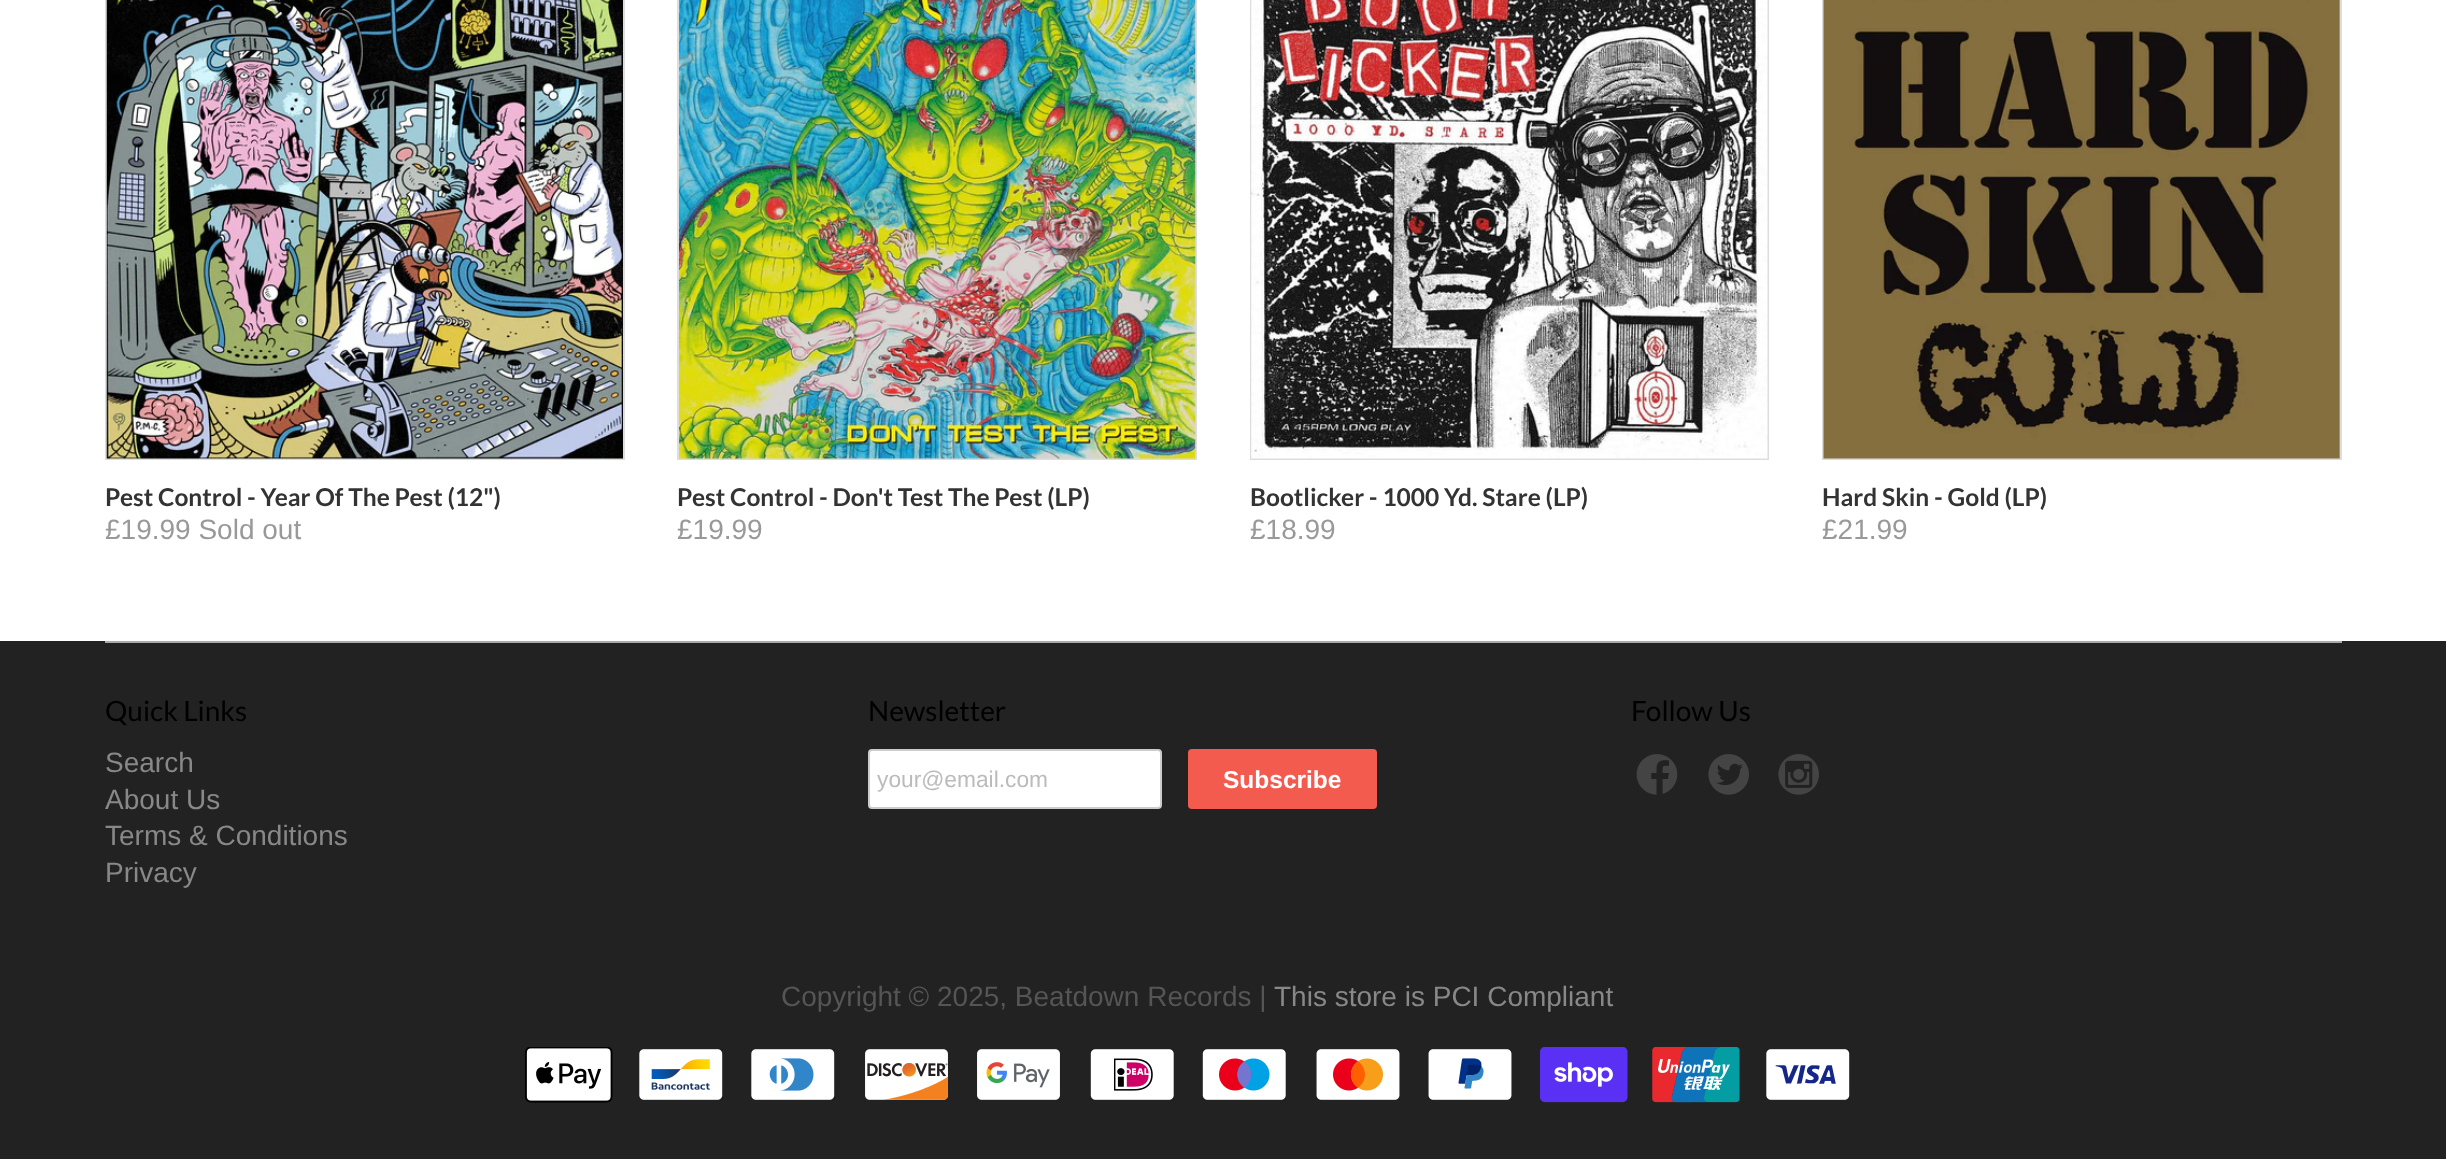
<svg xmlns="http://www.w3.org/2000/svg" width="2446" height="1159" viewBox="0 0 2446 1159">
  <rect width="100%" height="100%" fill="#ffffff"/>
  <rect x="106" y="-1" width="518" height="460" fill="none" stroke="#dddddd" stroke-width="2"/>
  <image x="106" y="0" width="517" height="459" href="img1.png"/>
  <text x="105" y="506" font-family="Lato" font-size="24.5" font-weight="bold" fill="#333333">Pest Control - Year Of The Pest (12")</text>
  <text x="105" y="539" font-family="Liberation Sans" font-size="28" fill="#999999">£19.99 Sold out</text>
  <rect x="678" y="-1" width="518" height="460" fill="none" stroke="#dddddd" stroke-width="2"/>
  <image x="679" y="0" width="517" height="459" href="img2.png"/>
  <text x="677" y="506" font-family="Lato" font-size="24.5" font-weight="bold" fill="#333333">Pest Control - Don't Test The Pest (LP)</text>
  <text x="677" y="539" font-family="Liberation Sans" font-size="28" fill="#999999">£19.99</text>
  <rect x="1251" y="-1" width="517" height="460" fill="none" stroke="#dddddd" stroke-width="2"/>
  <image x="1251" y="0" width="517" height="459" href="img3.png"/>
  <text x="1250" y="506" font-family="Lato" font-size="24.5" font-weight="bold" fill="#333333">Bootlicker - 1000 Yd. Stare (LP)</text>
  <text x="1250" y="539" font-family="Liberation Sans" font-size="28" fill="#999999">£18.99</text>
  <rect x="1823" y="-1" width="518" height="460" fill="none" stroke="#dddddd" stroke-width="2"/>
  <image x="1823" y="0" width="517" height="459" href="img4.png"/>
  <text x="1822" y="506" font-family="Lato" font-size="24.5" font-weight="bold" fill="#333333">Hard Skin - Gold (LP)</text>
  <text x="1822" y="539" font-family="Liberation Sans" font-size="28" fill="#999999">£21.99</text>
  <rect x="0" y="641" width="2446" height="518" fill="#222222"/>
  <rect x="105" y="641" width="2237" height="2" fill="#aaaaaa"/>
  <text x="105" y="721" font-family="Lato" font-size="28" fill="#000000">Quick Links</text>
  <text x="105" y="772" font-family="Liberation Sans" font-size="28" fill="#888888">Search</text>
  <text x="105" y="809" font-family="Liberation Sans" font-size="28" fill="#888888">About Us</text>
  <text x="105" y="845" font-family="Liberation Sans" font-size="28" fill="#888888">Terms &amp; Conditions</text>
  <text x="105" y="882" font-family="Liberation Sans" font-size="28" fill="#888888">Privacy</text>
  <text x="868" y="721" font-family="Lato" font-size="28" fill="#000000">Newsletter</text>
  <rect x="869" y="750" width="292" height="58" rx="3" fill="#ffffff" stroke="#cccccc" stroke-width="2"/>
  <text x="877" y="787" font-family="Liberation Sans" font-size="22.75" fill="#bbbbbb">your@email.com</text>
  <rect x="1188" y="749" width="189" height="60" rx="4" fill="#f45b4f"/>
  <text x="1223" y="788" font-family="Liberation Sans" font-size="24.5" font-weight="bold" fill="#ffffff">Subscribe</text>
  <text x="1631" y="721" font-family="Lato" font-size="28" fill="#000000">Follow Us</text>
  <image x="1636" y="754" width="42" height="41" href="img5.png"/>
  <image x="1708" y="754" width="41" height="41" href="img6.png"/>
  <image x="1778" y="754" width="41" height="41" href="img7.png"/>
  <text x="781" y="1006" font-family="Liberation Sans" font-size="28" fill="#555555">Copyright © 2025, Beatdown Records |</text>
  <text x="1274" y="1006" font-family="Liberation Sans" font-size="28" fill="#888888">This store is PCI Compliant</text>
  <image x="525" y="1047" width="88" height="56" href="img8.png"/>
  <image x="639" y="1049" width="84" height="51" href="img9.png"/>
  <image x="751" y="1049" width="84" height="51" href="img10.png"/>
  <image x="865" y="1049" width="83" height="51" href="img11.png"/>
  <image x="977" y="1049" width="83" height="51" href="img12.png"/>
  <image x="1090" y="1049" width="84" height="51" href="img13.png"/>
  <image x="1202" y="1049" width="84" height="51" href="img14.png"/>
  <image x="1316" y="1049" width="84" height="51" href="img15.png"/>
  <image x="1428" y="1049" width="84" height="51" href="img16.png"/>
  <image x="1540" y="1047" width="88" height="56" href="img17.png"/>
  <image x="1652" y="1047" width="88" height="56" href="img18.png"/>
  <image x="1766" y="1049" width="84" height="51" href="img19.png"/>
</svg>
